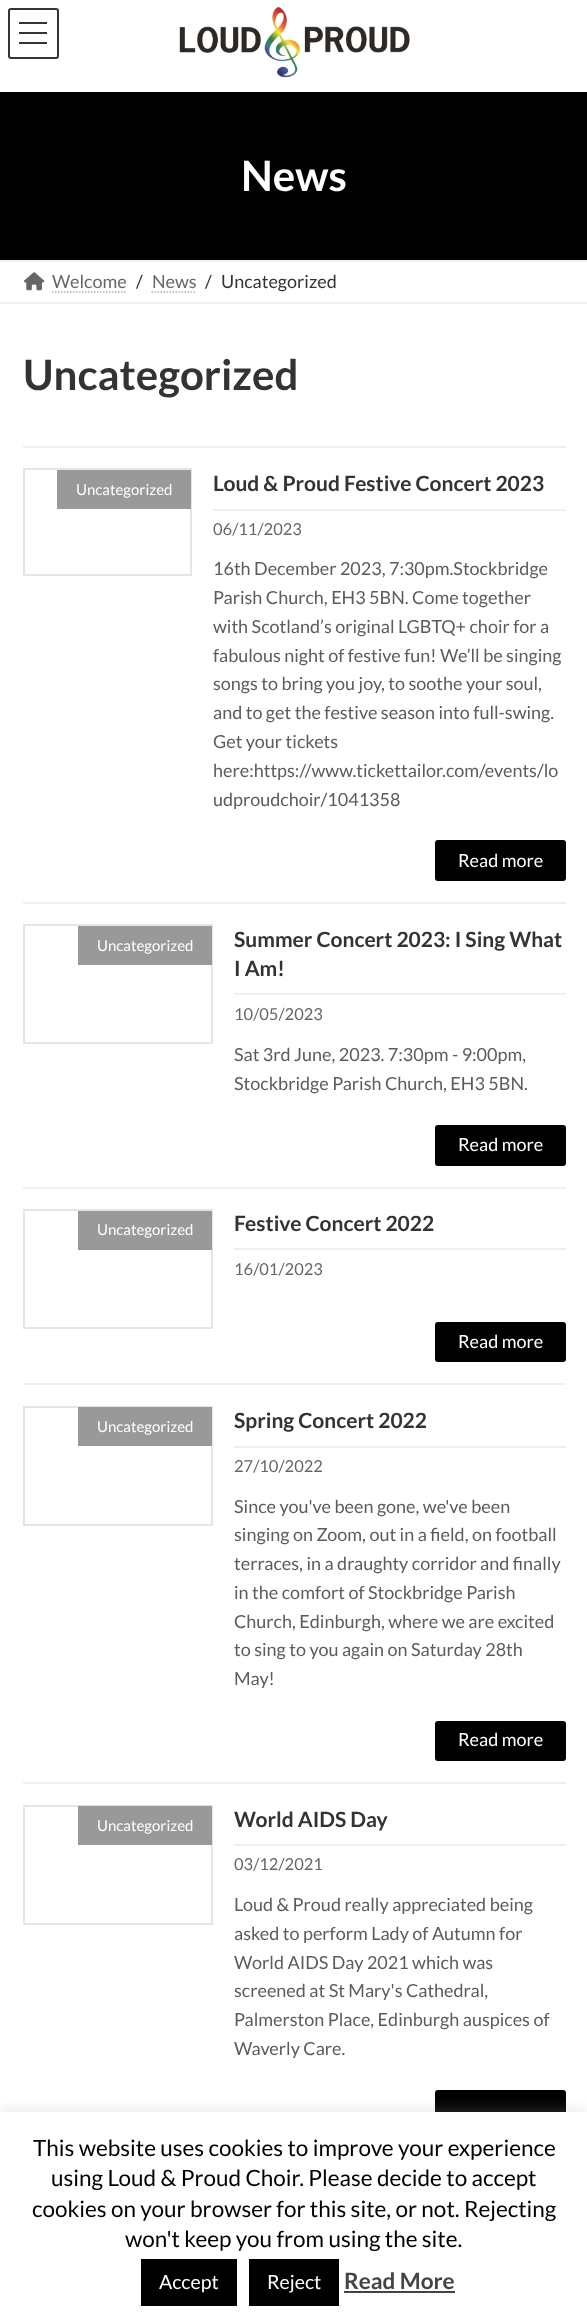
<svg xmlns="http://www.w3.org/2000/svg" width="587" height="2323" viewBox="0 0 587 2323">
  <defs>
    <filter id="blur1" x="-50%" y="-200%" width="200%" height="500%"><feGaussianBlur stdDeviation="2"/></filter>
    <filter id="blur2" x="-50%" y="-200%" width="200%" height="500%"><feGaussianBlur stdDeviation="7.5"/></filter>
  </defs>
  <rect width="100%" height="100%" fill="#ffffff"/>
  <rect x="0" y="92" width="587" height="168" fill="#000000"/>
  <rect x="0" y="-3" width="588" height="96" fill="#000000" fill-opacity="0.05" filter="url(#blur1)"/>
  <rect x="0" y="0" width="587" height="92" fill="#ffffff"/>
  <image x="179" y="7" width="231" height="71" href="img1.png"/>
  <rect x="19" y="22" width="28" height="2" fill="#333333"/>
  <rect x="19" y="32" width="28" height="2" fill="#333333"/>
  <rect x="19" y="42" width="28" height="2" fill="#333333"/>
  <rect x="9" y="9" width="49" height="49" rx="2" fill="none" stroke="#333333" stroke-width="2"/>
  <text x="241" y="191" font-family="Lato" font-size="42" font-weight="bold" fill="#ffffff">News</text>
  <rect x="0" y="260" width="587" height="2" fill="#f0f0f0"/>
  <rect x="0" y="302" width="587" height="2" fill="#f0f0f0"/>
  <image x="24" y="272" width="21" height="19" href="img2.png"/>
  <text x="52" y="288" font-family="Lato" font-size="18" fill="#666666">Welcome</text>
  <path d="M52 292H127" fill="none" stroke="#b3b3b3" stroke-width="1.5" stroke-dasharray="1.5 1.5"/>
  <text x="136" y="288" font-family="Lato" font-size="18" fill="#333333">/</text>
  <text x="152" y="288" font-family="Lato" font-size="18" fill="#666666">News</text>
  <path d="M151.5 292H196.5" fill="none" stroke="#b3b3b3" stroke-width="1.5" stroke-dasharray="1.5 1.5"/>
  <text x="205" y="288" font-family="Lato" font-size="18" fill="#333333">/</text>
  <text x="221" y="288" font-family="Lato" font-size="18" fill="#333333">Uncategorized</text>
  <text x="23" y="390" font-family="Lato" font-size="42" font-weight="bold" fill="#333333">Uncategorized</text>
  <rect x="23" y="446" width="543" height="2" fill="#f0f0f0"/>
  <rect x="23" y="902" width="543" height="2" fill="#f0f0f0"/>
  <rect x="24" y="469" width="167" height="106" fill="none" stroke="#e5e5e5" stroke-width="2"/>
  <rect x="57" y="470" width="134" height="39" fill="#999999"/>
  <text x="76" y="495" font-family="Lato" font-size="15" fill="#ffffff">Uncategorized</text>
  <rect x="213" y="509" width="353" height="2" fill="#f0f0f0"/>
  <text x="213" y="491" font-family="Lato" font-size="21" font-weight="bold" fill="#333333">Loud &amp; Proud Festive Concert 2023</text>
  <text x="213" y="535" font-family="Lato" font-size="16.5" fill="#666666">06/11/2023</text>
  <text x="213" y="575" font-family="Lato" font-size="18" fill="#5c5c5c">16th December 2023, 7:30pm.Stockbridge</text>
  <text x="213" y="604" font-family="Lato" font-size="18" fill="#5c5c5c">Parish Church, EH3 5BN. Come together</text>
  <text x="213" y="633" font-family="Lato" font-size="18" fill="#5c5c5c">with Scotland’s original LGBTQ+ choir for a</text>
  <text x="213" y="662" font-family="Lato" font-size="18" fill="#5c5c5c">fabulous night of festive fun! We’ll be singing</text>
  <text x="213" y="690" font-family="Lato" font-size="18" fill="#5c5c5c">songs to bring you joy, to soothe your soul,</text>
  <text x="213" y="719" font-family="Lato" font-size="18" fill="#5c5c5c">and to get the festive season into full-swing.</text>
  <text x="213" y="748" font-family="Lato" font-size="18" fill="#5c5c5c">Get your tickets</text>
  <text x="213" y="777" font-family="Lato" font-size="18" fill="#5c5c5c">here:https://www.tickettailor.com/events/lo</text>
  <text x="213" y="806" font-family="Lato" font-size="18" fill="#5c5c5c">udproudchoir/1041358</text>
  <rect x="436" y="841" width="129" height="39" rx="2" fill="#000000" stroke="#000000" stroke-width="2"/>
  <text x="458" y="867" font-family="Lato" font-size="18" fill="#ffffff">Read more</text>
  <rect x="23" y="1187" width="543" height="2" fill="#f0f0f0"/>
  <rect x="24" y="925" width="188" height="118" fill="none" stroke="#e5e5e5" stroke-width="2"/>
  <rect x="78" y="926" width="134" height="39" fill="#999999"/>
  <text x="97" y="951" font-family="Lato" font-size="15" fill="#ffffff">Uncategorized</text>
  <rect x="234" y="993" width="332" height="2" fill="#f0f0f0"/>
  <text x="234" y="947" font-family="Lato" font-size="21" font-weight="bold" fill="#333333">Summer Concert 2023: I Sing What</text>
  <text x="234" y="976" font-family="Lato" font-size="21" font-weight="bold" fill="#333333">I Am!</text>
  <text x="234" y="1020" font-family="Lato" font-size="16.5" fill="#666666">10/05/2023</text>
  <text x="234" y="1061" font-family="Lato" font-size="18" fill="#5c5c5c">Sat 3rd June, 2023. 7:30pm - 9:00pm,</text>
  <text x="234" y="1090" font-family="Lato" font-size="18" fill="#5c5c5c">Stockbridge Parish Church, EH3 5BN.</text>
  <rect x="436" y="1126" width="129" height="39" rx="2" fill="#000000" stroke="#000000" stroke-width="2"/>
  <text x="458" y="1151" font-family="Lato" font-size="18" fill="#ffffff">Read more</text>
  <rect x="23" y="1383" width="543" height="2" fill="#f0f0f0"/>
  <rect x="24" y="1210" width="188" height="118" fill="none" stroke="#e5e5e5" stroke-width="2"/>
  <rect x="78" y="1211" width="134" height="39" fill="#999999"/>
  <text x="97" y="1235" font-family="Lato" font-size="15" fill="#ffffff">Uncategorized</text>
  <rect x="234" y="1248" width="332" height="2" fill="#f0f0f0"/>
  <text x="234" y="1231" font-family="Lato" font-size="21" font-weight="bold" fill="#333333">Festive Concert 2022</text>
  <text x="234" y="1275" font-family="Lato" font-size="16.5" fill="#666666">16/01/2023</text>
  <rect x="436" y="1323" width="129" height="38" rx="2" fill="#000000" stroke="#000000" stroke-width="2"/>
  <text x="458" y="1348" font-family="Lato" font-size="18" fill="#ffffff">Read more</text>
  <rect x="23" y="1782" width="543" height="2" fill="#f0f0f0"/>
  <rect x="24" y="1407" width="188" height="118" fill="none" stroke="#e5e5e5" stroke-width="2"/>
  <rect x="78" y="1407" width="134" height="39" fill="#999999"/>
  <text x="97" y="1432" font-family="Lato" font-size="15" fill="#ffffff">Uncategorized</text>
  <rect x="234" y="1446" width="332" height="2" fill="#f0f0f0"/>
  <text x="234" y="1428" font-family="Lato" font-size="21" font-weight="bold" fill="#333333">Spring Concert 2022</text>
  <text x="234" y="1472" font-family="Lato" font-size="16.5" fill="#666666">27/10/2022</text>
  <text x="234" y="1513" font-family="Lato" font-size="18" fill="#5c5c5c">Since you've been gone, we've been</text>
  <text x="234" y="1541" font-family="Lato" font-size="18" fill="#5c5c5c">singing on Zoom, out in a field, on football</text>
  <text x="234" y="1570" font-family="Lato" font-size="18" fill="#5c5c5c">terraces, in a draughty corridor and finally</text>
  <text x="234" y="1599" font-family="Lato" font-size="18" fill="#5c5c5c">in the comfort of Stockbridge Parish</text>
  <text x="234" y="1628" font-family="Lato" font-size="18" fill="#5c5c5c">Church, Edinburgh, where we are excited</text>
  <text x="234" y="1656" font-family="Lato" font-size="18" fill="#5c5c5c">to sing to you again on Saturday 28th</text>
  <text x="234" y="1685" font-family="Lato" font-size="18" fill="#5c5c5c">May!</text>
  <rect x="436" y="1722" width="129" height="38" rx="2" fill="#000000" stroke="#000000" stroke-width="2"/>
  <text x="458" y="1746" font-family="Lato" font-size="18" fill="#ffffff">Read more</text>
  <rect x="24" y="1806" width="188" height="118" fill="none" stroke="#e5e5e5" stroke-width="2"/>
  <rect x="78" y="1806" width="134" height="39" fill="#999999"/>
  <text x="97" y="1831" font-family="Lato" font-size="15" fill="#ffffff">Uncategorized</text>
  <rect x="234" y="1844" width="332" height="2" fill="#f0f0f0"/>
  <text x="234" y="1827" font-family="Lato" font-size="21" font-weight="bold" fill="#333333">World AIDS Day</text>
  <text x="234" y="1870" font-family="Lato" font-size="16.5" fill="#666666">03/12/2021</text>
  <text x="234" y="1911" font-family="Lato" font-size="18" fill="#5c5c5c">Loud &amp; Proud really appreciated being</text>
  <text x="234" y="1940" font-family="Lato" font-size="18" fill="#5c5c5c">asked to perform Lady of Autumn for</text>
  <text x="234" y="1969" font-family="Lato" font-size="18" fill="#5c5c5c">World AIDS Day 2021 which was</text>
  <text x="234" y="1997" font-family="Lato" font-size="18" fill="#5c5c5c">screened at St Mary's Cathedral,</text>
  <text x="234" y="2026" font-family="Lato" font-size="18" fill="#5c5c5c">Palmerston Place, Edinburgh auspices of</text>
  <text x="234" y="2055" font-family="Lato" font-size="18" fill="#5c5c5c">Waverly Care.</text>
  <rect x="436" y="2091" width="129" height="38" rx="2" fill="#000000" stroke="#000000" stroke-width="2"/>
  <rect x="0" y="2111" width="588" height="211" fill="#acabab" fill-opacity="0.3" filter="url(#blur2)"/>
  <rect x="0" y="2112" width="587" height="211" fill="#ffffff"/>
  <text x="33" y="2156" font-family="Lato" font-size="22.5" fill="#000000">This website uses cookies to improve your experience</text>
  <text x="51" y="2186" font-family="Lato" font-size="22.5" fill="#000000">using Loud &amp; Proud Choir. Please decide to accept</text>
  <text x="32" y="2217" font-family="Lato" font-size="22.5" fill="#000000">cookies on your browser for this site, or not. Rejecting</text>
  <text x="125" y="2247" font-family="Lato" font-size="22.5" fill="#000000">won't keep you from using the site.</text>
  <rect x="141" y="2259" width="96" height="47" fill="#000000"/>
  <text x="159" y="2289" font-family="Lato" font-size="19.5" fill="#ffffff">Accept</text>
  <rect x="249" y="2259" width="90" height="47" fill="#000000"/>
  <text x="267" y="2289" font-family="Lato" font-size="19.5" fill="#ffffff">Reject</text>
  <text x="344" y="2289" font-family="Lato" font-size="22.5" font-weight="bold" fill="#444444">Read More</text>
  <rect x="344" y="2291" width="111" height="2" fill="#444444"/>
</svg>
